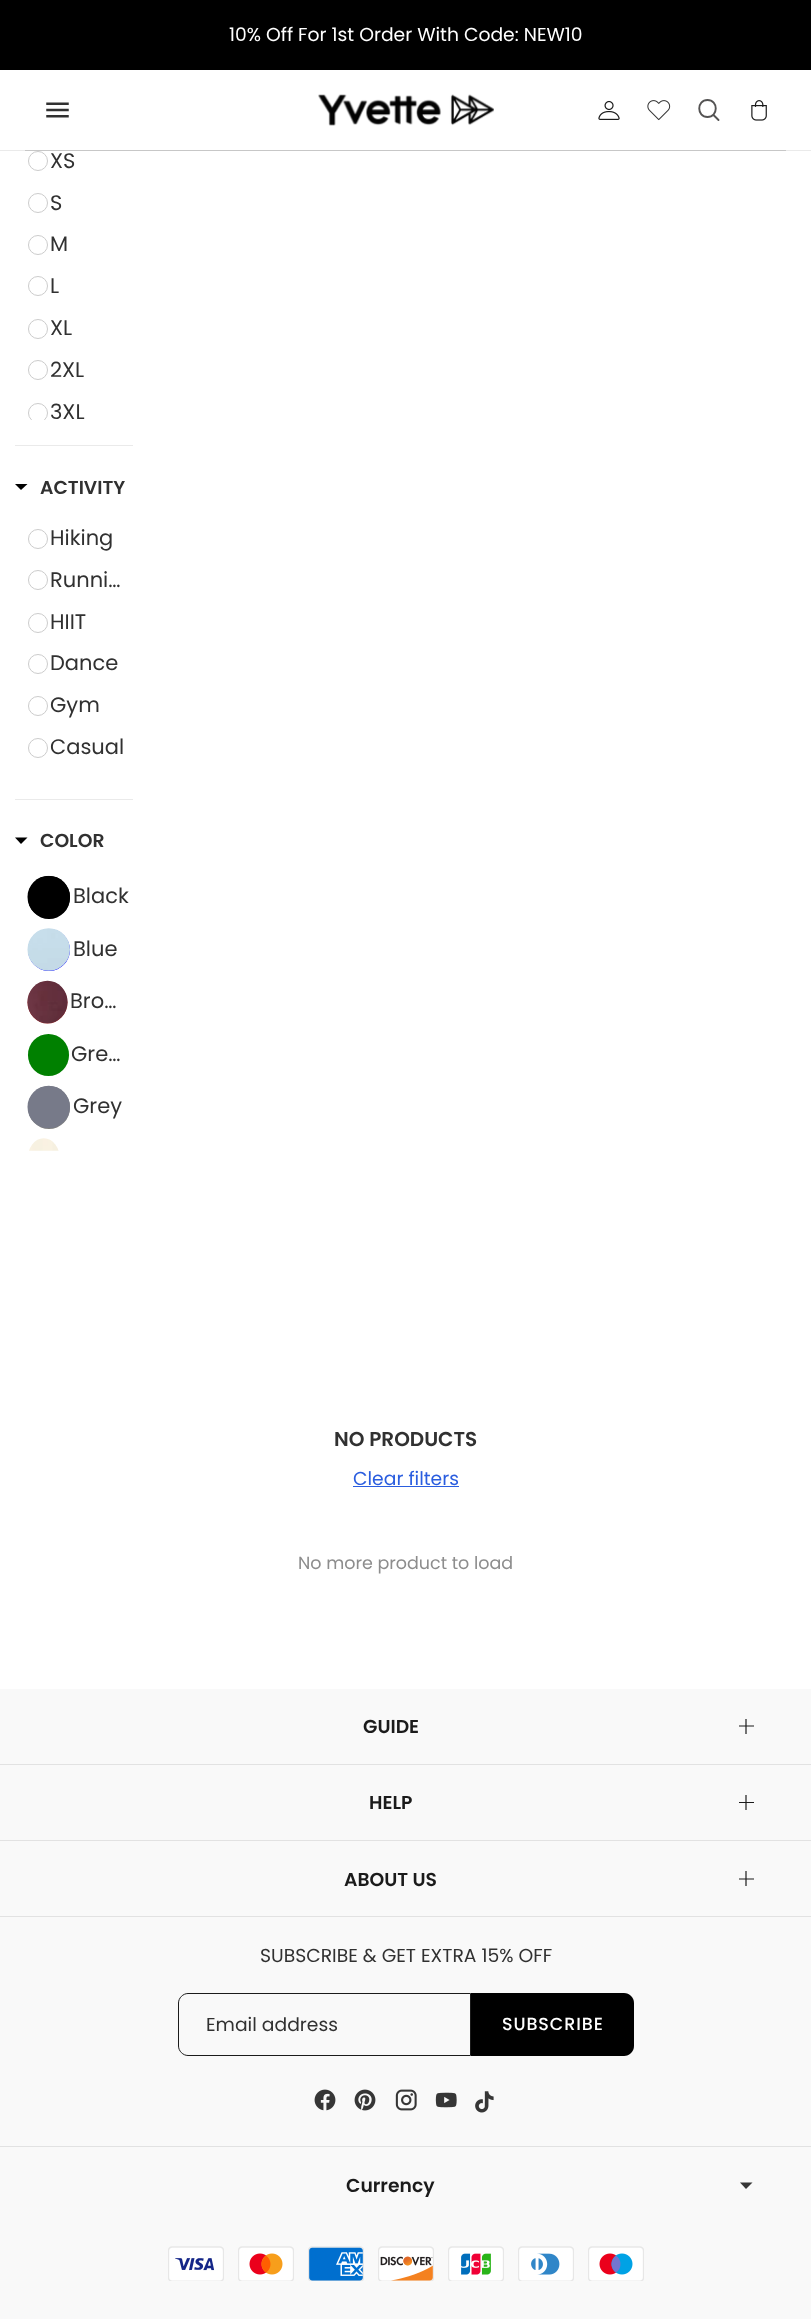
<svg xmlns="http://www.w3.org/2000/svg" width="811" height="2319" viewBox="0 0 811 2319">
  <defs>
    <clipPath id="clip1"><rect x="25" y="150" width="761" height="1"/></clipPath>
    <filter id="blur1" x="-50%" y="-200%" width="200%" height="500%"><feGaussianBlur stdDeviation="0.5"/></filter>
    <clipPath id="clip2"><rect x="15" y="145" width="118" height="275"/></clipPath>
  </defs>
  <rect width="100%" height="100%" fill="#ffffff"/>
  <rect x="0" y="0" width="811" height="70" fill="#000000"/>
  <text x="229" y="41" font-family="Poppins" font-size="18.75" fill="#ffffff">10% Off For 1st Order With Code: NEW10</text>
  <rect x="0" y="150" width="811" height="1" fill="#eaeaea"/>
  <circle cx="38" cy="161" r="9.5" fill="none" stroke="#cccccc"/>
  <g clip-path="url(#clip1)">
    <rect x="25" y="71" width="761" height="80" fill="#000000" fill-opacity="0.15" filter="url(#blur1)"/>
  </g>
  <image x="46" y="102" width="23" height="16" href="img1.png"/>
  <image x="318" y="94" width="176" height="32" href="img2.png"/>
  <image x="598" y="100" width="22" height="20" href="img3.png"/>
  <image x="647" y="100" width="24" height="21" href="img4.png"/>
  <path d="M707.5 117C718.5 117 718.5 100 707.5 100C696.5 100 696.5 117 707.5 117ZM713.5 115L718.5 120" fill="none" stroke="#545353" stroke-width="1.9" stroke-linecap="round" stroke-linejoin="round"/>
  <image x="751" y="100" width="16" height="21" href="img5.png"/>
  <text x="50" y="168" font-family="Poppins" font-size="21" fill="#313131">XS</text>
  <circle cx="38" cy="203" r="9.5" fill="none" stroke="#cccccc"/>
  <text x="50" y="210" font-family="Poppins" font-size="21" fill="#313131">S</text>
  <circle cx="38" cy="245" r="9.5" fill="none" stroke="#cccccc"/>
  <text x="50" y="251" font-family="Poppins" font-size="21" fill="#313131">M</text>
  <circle cx="38" cy="286" r="9.5" fill="none" stroke="#cccccc"/>
  <text x="50" y="293" font-family="Poppins" font-size="21" fill="#313131">L</text>
  <circle cx="38" cy="329" r="9.5" fill="none" stroke="#cccccc"/>
  <text x="50" y="335" font-family="Poppins" font-size="21" fill="#313131">XL</text>
  <circle cx="38" cy="370" r="9.5" fill="none" stroke="#cccccc"/>
  <text x="50" y="377" font-family="Poppins" font-size="21" fill="#313131">2XL</text>
  <g clip-path="url(#clip2)">
    <circle cx="38" cy="413" r="9.5" fill="none" stroke="#cccccc"/>
  </g>
  <text x="50" y="419" font-family="Poppins" font-size="21" fill="#313131">3XL</text>
  <rect x="15" y="445" width="118" height="1" fill="#eaeaea"/>
  <path d="M15 484H27.5L21 490Z" fill="#000000"/>
  <text x="40" y="494" font-family="Poppins" font-size="18.75" font-weight="600" fill="#313131">ACTIVITY</text>
  <circle cx="38" cy="539" r="9.5" fill="none" stroke="#cccccc"/>
  <text x="50" y="545" font-family="Poppins" font-size="21" fill="#313131">Hiking</text>
  <circle cx="38" cy="580" r="9.5" fill="none" stroke="#cccccc"/>
  <text x="50" y="587" font-family="Poppins" font-size="21" fill="#313131">Runni…</text>
  <circle cx="38" cy="623" r="9.5" fill="none" stroke="#cccccc"/>
  <text x="50" y="629" font-family="Poppins" font-size="21" fill="#313131">HIIT</text>
  <circle cx="38" cy="664" r="9.5" fill="none" stroke="#cccccc"/>
  <text x="50" y="670" font-family="Poppins" font-size="21" fill="#313131">Dance</text>
  <circle cx="38" cy="706" r="9.5" fill="none" stroke="#cccccc"/>
  <text x="50" y="712" font-family="Poppins" font-size="21" fill="#313131">Gym</text>
  <circle cx="38" cy="748" r="9.5" fill="none" stroke="#cccccc"/>
  <text x="50" y="754" font-family="Poppins" font-size="21" fill="#313131">Casual</text>
  <rect x="15" y="799" width="118" height="1" fill="#eaeaea"/>
  <path d="M15 837.5H27.5L21 844Z" fill="#000000"/>
  <text x="40" y="847" font-family="Poppins" font-size="18.75" font-weight="600" fill="#313131">COLOR</text>
  <rect x="28" y="876" width="42" height="43" rx="21" fill="#000000"/>
  <image x="27" y="875" width="43" height="44" href="img6.png"/>
  <text x="73" y="903" font-family="Poppins" font-size="21" fill="#313131">Black</text>
  <circle cx="49" cy="950" r="21" fill="#0000ff"/>
  <image x="27" y="928" width="43" height="43" href="img7.png"/>
  <text x="73" y="956" font-family="Poppins" font-size="21" fill="#313131">Blue</text>
  <ellipse cx="47.5" cy="1002.5" rx="20" ry="21" fill="#a52a2a"/>
  <image x="27" y="980" width="41" height="44" href="img8.png"/>
  <text x="70" y="1008" font-family="Poppins" font-size="21" fill="#313131">Bro…</text>
  <rect x="28" y="1034" width="41" height="42" rx="20.5" fill="#008000"/>
  <text x="71" y="1061" font-family="Poppins" font-size="21" fill="#313131">Gre…</text>
  <rect x="28" y="1086" width="42" height="43" rx="21" fill="#808080"/>
  <image x="27" y="1085" width="43" height="43" href="img9.png"/>
  <text x="73" y="1113" font-family="Poppins" font-size="21" fill="#313131">Grey</text>
  <image x="29" y="1138" width="30" height="13" href="img10.png"/>
  <text x="334" y="1446" font-family="Poppins" font-size="20" font-weight="600" fill="#313131">NO PRODUCTS</text>
  <text x="353" y="1485" font-family="Poppins" font-size="18.75" fill="#2a5ddf">Clear filters</text>
  <rect x="353" y="1486" width="106" height="1" fill="#2a5ddf"/>
  <text x="298" y="1569" font-family="Poppins" font-size="17.5" fill="#8d8d8d">No more product to load</text>
  <rect x="0" y="1689" width="811" height="630" fill="#f9f9f9"/>
  <rect x="0" y="1764" width="811" height="1" fill="#e2e2e2"/>
  <text x="363" y="1733" font-family="Poppins" font-size="18.75" font-weight="600" fill="#1b1b1b">GUIDE</text>
  <path d="M739 1726H754M746 1719V1734" fill="none" stroke="#1b1b1b" stroke-width="1.2"/>
  <rect x="0" y="1840" width="811" height="1" fill="#e2e2e2"/>
  <text x="369" y="1809" font-family="Poppins" font-size="18.75" font-weight="600" fill="#1b1b1b">HELP</text>
  <rect x="739" y="1802" width="15" height="1" fill="#1b1b1b"/>
  <path d="M746 1795V1810" fill="none" stroke="#1b1b1b" stroke-width="1.2"/>
  <rect x="0" y="1916" width="811" height="1" fill="#e2e2e2"/>
  <text x="344" y="1886" font-family="Poppins" font-size="18.75" font-weight="600" fill="#1b1b1b">ABOUT US</text>
  <path d="M739 1879H754M746 1871V1886" fill="none" stroke="#1b1b1b" stroke-width="1.2"/>
  <rect x="0" y="2146" width="811" height="1" fill="#e2e2e2"/>
  <text x="260" y="1962" font-family="Poppins" font-size="18.75" fill="#313131">SUBSCRIBE &amp; GET EXTRA 15% OFF</text>
  <path d="M188 1993.5H470.5V2055.5H188C183 2055.5 178.5 2051 178.5 2046V2003C178.5 1998 183 1993.5 188 1993.5Z" fill="none" stroke="#1b1b1b"/>
  <text x="206" y="2031" font-family="Poppins" font-size="18.75" fill="#313131">Email address</text>
  <path d="M471 1993H624C629.5 1993 634 1997.5 634 2003V2046C634 2051.5 629.5 2056 624 2056H471Z" fill="#000000"/>
  <text x="502" y="2030" font-family="Poppins" font-size="17.5" font-weight="500" letter-spacing="0.9" fill="#ffffff">SUBSCRIBE</text>
  <image x="314" y="2089" width="22" height="22" href="img11.png"/>
  <image x="354" y="2089" width="22" height="22" href="img12.png"/>
  <image x="395" y="2089" width="22" height="22" href="img13.png"/>
  <image x="435" y="2092" width="22" height="16" href="img14.png"/>
  <image x="475" y="2091" width="19" height="22" href="img15.png"/>
  <text x="346" y="2192" font-family="Poppins" font-size="18.75" font-weight="600" fill="#1b1b1b">Currency</text>
  <path d="M740 2182.5L746 2189L752.5 2182.5Z" fill="#363636"/>
  <image x="168" y="2246" width="56" height="35" href="img16.png"/>
  <image x="238" y="2246" width="56" height="35" href="img17.png"/>
  <image x="308" y="2246" width="56" height="35" href="img18.png"/>
  <image x="378" y="2246" width="56" height="35" href="img19.png"/>
  <image x="448" y="2246" width="56" height="35" href="img20.png"/>
  <image x="518" y="2246" width="56" height="35" href="img21.png"/>
  <image x="588" y="2246" width="56" height="35" href="img22.png"/>
</svg>
